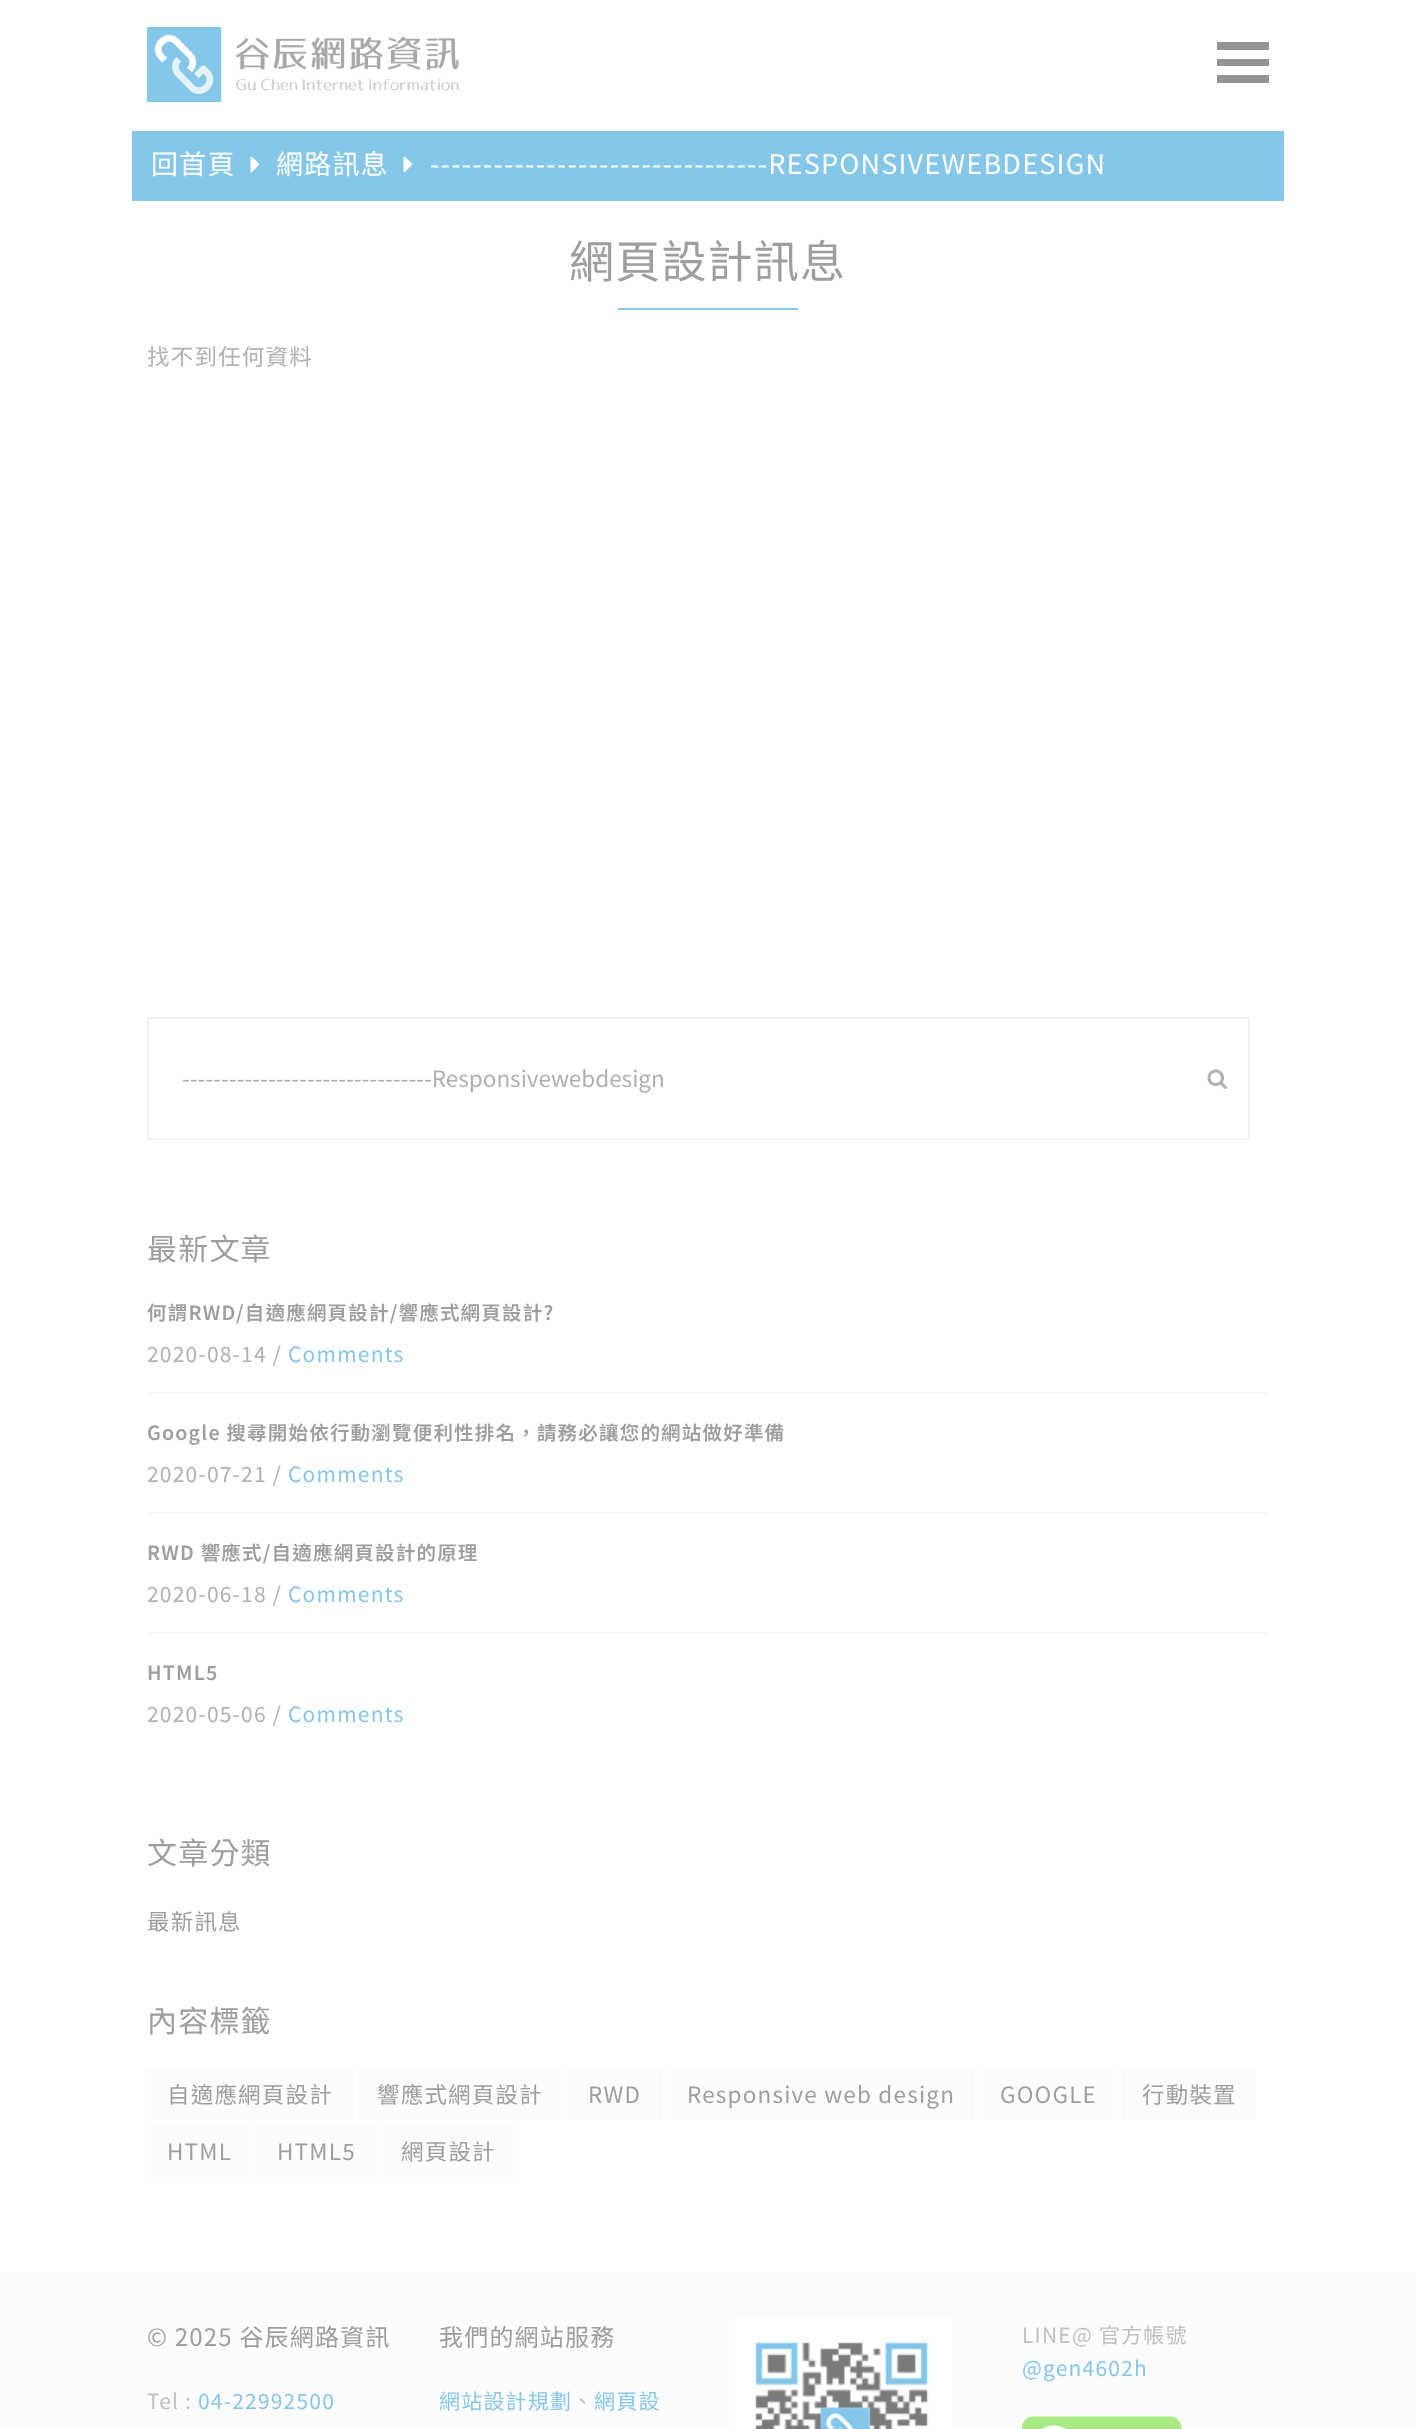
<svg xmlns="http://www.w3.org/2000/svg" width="1416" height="2429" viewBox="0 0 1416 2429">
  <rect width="100%" height="100%" fill="#ffffff"/>
  <image x="147" y="27" width="312" height="75" href="img1.png"/>
  <rect x="1217" y="42" width="52" height="8" fill="#949494"/>
  <rect x="1217" y="59" width="52" height="7" fill="#949494"/>
  <rect x="1217" y="75" width="52" height="8" fill="#949494"/>
  <rect x="132" y="131" width="1152" height="70" fill="#84c7e9"/>
  <text x="151" y="174" font-family="Noto Sans TC" font-size="27" letter-spacing="1.2" fill="#ffffff">回首頁</text>
  <image x="250" y="156" width="10" height="17" href="img2.png"/>
  <text x="276" y="174" font-family="Noto Sans TC" font-size="27" letter-spacing="1.2" fill="#ffffff">網路訊息</text>
  <image x="403" y="156" width="10" height="17" href="img2.png"/>
  <text x="430" y="174" font-family="Noto Sans TC" font-size="27" letter-spacing="1.2" fill="#ffffff">--------------------------------RESPONSIVEWEBDESIGN</text>
  <text x="569" y="278" font-family="Noto Sans TC" font-size="45" letter-spacing="1.2" fill="#9e9e9e">網頁設計訊息</text>
  <rect x="618" y="308" width="180" height="2" fill="#84c7e9"/>
  <text x="147" y="365" font-family="Noto Sans TC" font-size="22.5" letter-spacing="1.2" fill="#b0b0b0">找不到任何資料</text>
  <rect x="148" y="1018" width="1101" height="121" fill="none" stroke="#f1f1f1" stroke-width="2"/>
  <text x="182" y="1087" font-family="Noto Sans TC" font-size="22.5" fill="#b0b0b0">--------------------------------Responsivewebdesign</text>
  <image x="1207" y="1069" width="20" height="20" href="img3.png"/>
  <text x="147" y="1260" font-family="Noto Sans TC" font-size="30" letter-spacing="1.2" fill="#9e9e9e">最新文章</text>
  <rect x="147" y="1392" width="1122" height="2" fill="#f7f7f7"/>
  <text x="147" y="1320" font-family="Noto Sans TC" font-size="19.5" font-weight="600" letter-spacing="1.2" fill="#9e9e9e">何謂RWD/自適應網頁設計/響應式網頁設計?</text>
  <text x="147" y="1362" font-family="Noto Sans TC" font-size="21" letter-spacing="1.2" fill="#b0b0b0">2020-08-14 /</text>
  <text x="288" y="1362" font-family="Noto Sans TC" font-size="21" letter-spacing="1.2" fill="#84c7e9">Comments</text>
  <rect x="147" y="1512" width="1122" height="2" fill="#f7f7f7"/>
  <text x="147" y="1440" font-family="Noto Sans TC" font-size="19.5" font-weight="600" letter-spacing="1.2" fill="#9e9e9e">Google 搜尋開始依行動瀏覽便利性排名，請務必讓您的網站做好準備</text>
  <text x="147" y="1482" font-family="Noto Sans TC" font-size="21" letter-spacing="1.2" fill="#b0b0b0">2020-07-21 /</text>
  <text x="288" y="1482" font-family="Noto Sans TC" font-size="21" letter-spacing="1.2" fill="#84c7e9">Comments</text>
  <rect x="147" y="1632" width="1122" height="2" fill="#f7f7f7"/>
  <text x="147" y="1560" font-family="Noto Sans TC" font-size="19.5" font-weight="600" letter-spacing="1.2" fill="#9e9e9e">RWD 響應式/自適應網頁設計的原理</text>
  <text x="147" y="1602" font-family="Noto Sans TC" font-size="21" letter-spacing="1.2" fill="#b0b0b0">2020-06-18 /</text>
  <text x="288" y="1602" font-family="Noto Sans TC" font-size="21" letter-spacing="1.2" fill="#84c7e9">Comments</text>
  <text x="147" y="1680" font-family="Noto Sans TC" font-size="19.5" font-weight="600" letter-spacing="1.2" fill="#9e9e9e">HTML5</text>
  <text x="147" y="1722" font-family="Noto Sans TC" font-size="21" letter-spacing="1.2" fill="#b0b0b0">2020-05-06 /</text>
  <text x="288" y="1722" font-family="Noto Sans TC" font-size="21" letter-spacing="1.2" fill="#84c7e9">Comments</text>
  <text x="147" y="1864" font-family="Noto Sans TC" font-size="30" letter-spacing="1.2" fill="#9e9e9e">文章分類</text>
  <text x="147" y="1930" font-family="Noto Sans TC" font-size="22.5" letter-spacing="1.2" fill="#9e9e9e">最新訊息</text>
  <text x="147" y="2032" font-family="Noto Sans TC" font-size="30" letter-spacing="1.2" fill="#9e9e9e">內容標籤</text>
  <rect x="147" y="2069" width="206" height="51" fill="#fcfcfc"/>
  <text x="167" y="2103" font-family="Noto Sans TC" font-size="22.5" letter-spacing="1.2" fill="#9e9e9e">自適應網頁設計</text>
  <rect x="359" y="2069" width="204" height="51" fill="#fcfcfc"/>
  <text x="377" y="2103" font-family="Noto Sans TC" font-size="22.5" letter-spacing="1.2" fill="#9e9e9e">響應式網頁設計</text>
  <rect x="569" y="2069" width="93" height="51" fill="#fcfcfc"/>
  <text x="588" y="2103" font-family="Noto Sans TC" font-size="22.5" letter-spacing="1.2" fill="#9e9e9e">RWD</text>
  <rect x="668" y="2069" width="306" height="51" fill="#fcfcfc"/>
  <text x="687" y="2103" font-family="Noto Sans TC" font-size="22.5" letter-spacing="1.2" fill="#9e9e9e">Responsive web design</text>
  <rect x="980" y="2069" width="136" height="51" fill="#fcfcfc"/>
  <text x="1000" y="2103" font-family="Noto Sans TC" font-size="22.5" letter-spacing="1.2" fill="#9e9e9e">GOOGLE</text>
  <rect x="1122" y="2069" width="134" height="51" fill="#fcfcfc"/>
  <text x="1142" y="2103" font-family="Noto Sans TC" font-size="22.5" letter-spacing="1.2" fill="#9e9e9e">行動裝置</text>
  <rect x="147" y="2126" width="104" height="51" fill="#fcfcfc"/>
  <text x="167" y="2160" font-family="Noto Sans TC" font-size="22.5" letter-spacing="1.2" fill="#9e9e9e">HTML</text>
  <rect x="257" y="2126" width="118" height="51" fill="#fcfcfc"/>
  <text x="277" y="2160" font-family="Noto Sans TC" font-size="22.5" letter-spacing="1.2" fill="#9e9e9e">HTML5</text>
  <rect x="381" y="2126" width="134" height="51" fill="#fcfcfc"/>
  <text x="401" y="2160" font-family="Noto Sans TC" font-size="22.5" letter-spacing="1.2" fill="#9e9e9e">網頁設計</text>
  <rect x="0" y="2273" width="1416" height="156" fill="#fcfcfc"/>
  <text x="147" y="2346" font-family="Noto Sans TC" font-size="24" letter-spacing="1.2" fill="#9e9e9e">© 2025 谷辰網路資訊</text>
  <text x="147" y="2409" font-family="Noto Sans TC" font-size="21" letter-spacing="1.2" fill="#c0c0c0">Tel :</text>
  <text x="198" y="2409" font-family="Noto Sans TC" font-size="21" letter-spacing="1.2" fill="#84c7e9">04-22992500</text>
  <text x="439" y="2346" font-family="Noto Sans TC" font-size="24" letter-spacing="1.2" fill="#9e9e9e">我們的網站服務</text>
  <text x="439" y="2409" font-family="Noto Sans TC" font-size="21" letter-spacing="1.2" fill="#84c7e9">網站設計規劃</text>
  <text x="572" y="2409" font-family="Noto Sans TC" font-size="21" letter-spacing="1.2" fill="#c0c0c0">、</text>
  <text x="594" y="2409" font-family="Noto Sans TC" font-size="21" letter-spacing="1.2" fill="#84c7e9">網頁設</text>
  <image x="731" y="2318" width="222" height="111" href="img4.png"/>
  <text x="1022" y="2343" font-family="Noto Sans TC" font-size="21" letter-spacing="1.2" fill="#c0c0c0">LINE@ 官方帳號</text>
  <text x="1022" y="2376" font-family="Noto Sans TC" font-size="21" letter-spacing="1.2" fill="#84c7e9">@gen4602h</text>
  <image x="1022" y="2416" width="160" height="13" href="img5.png"/>
</svg>
